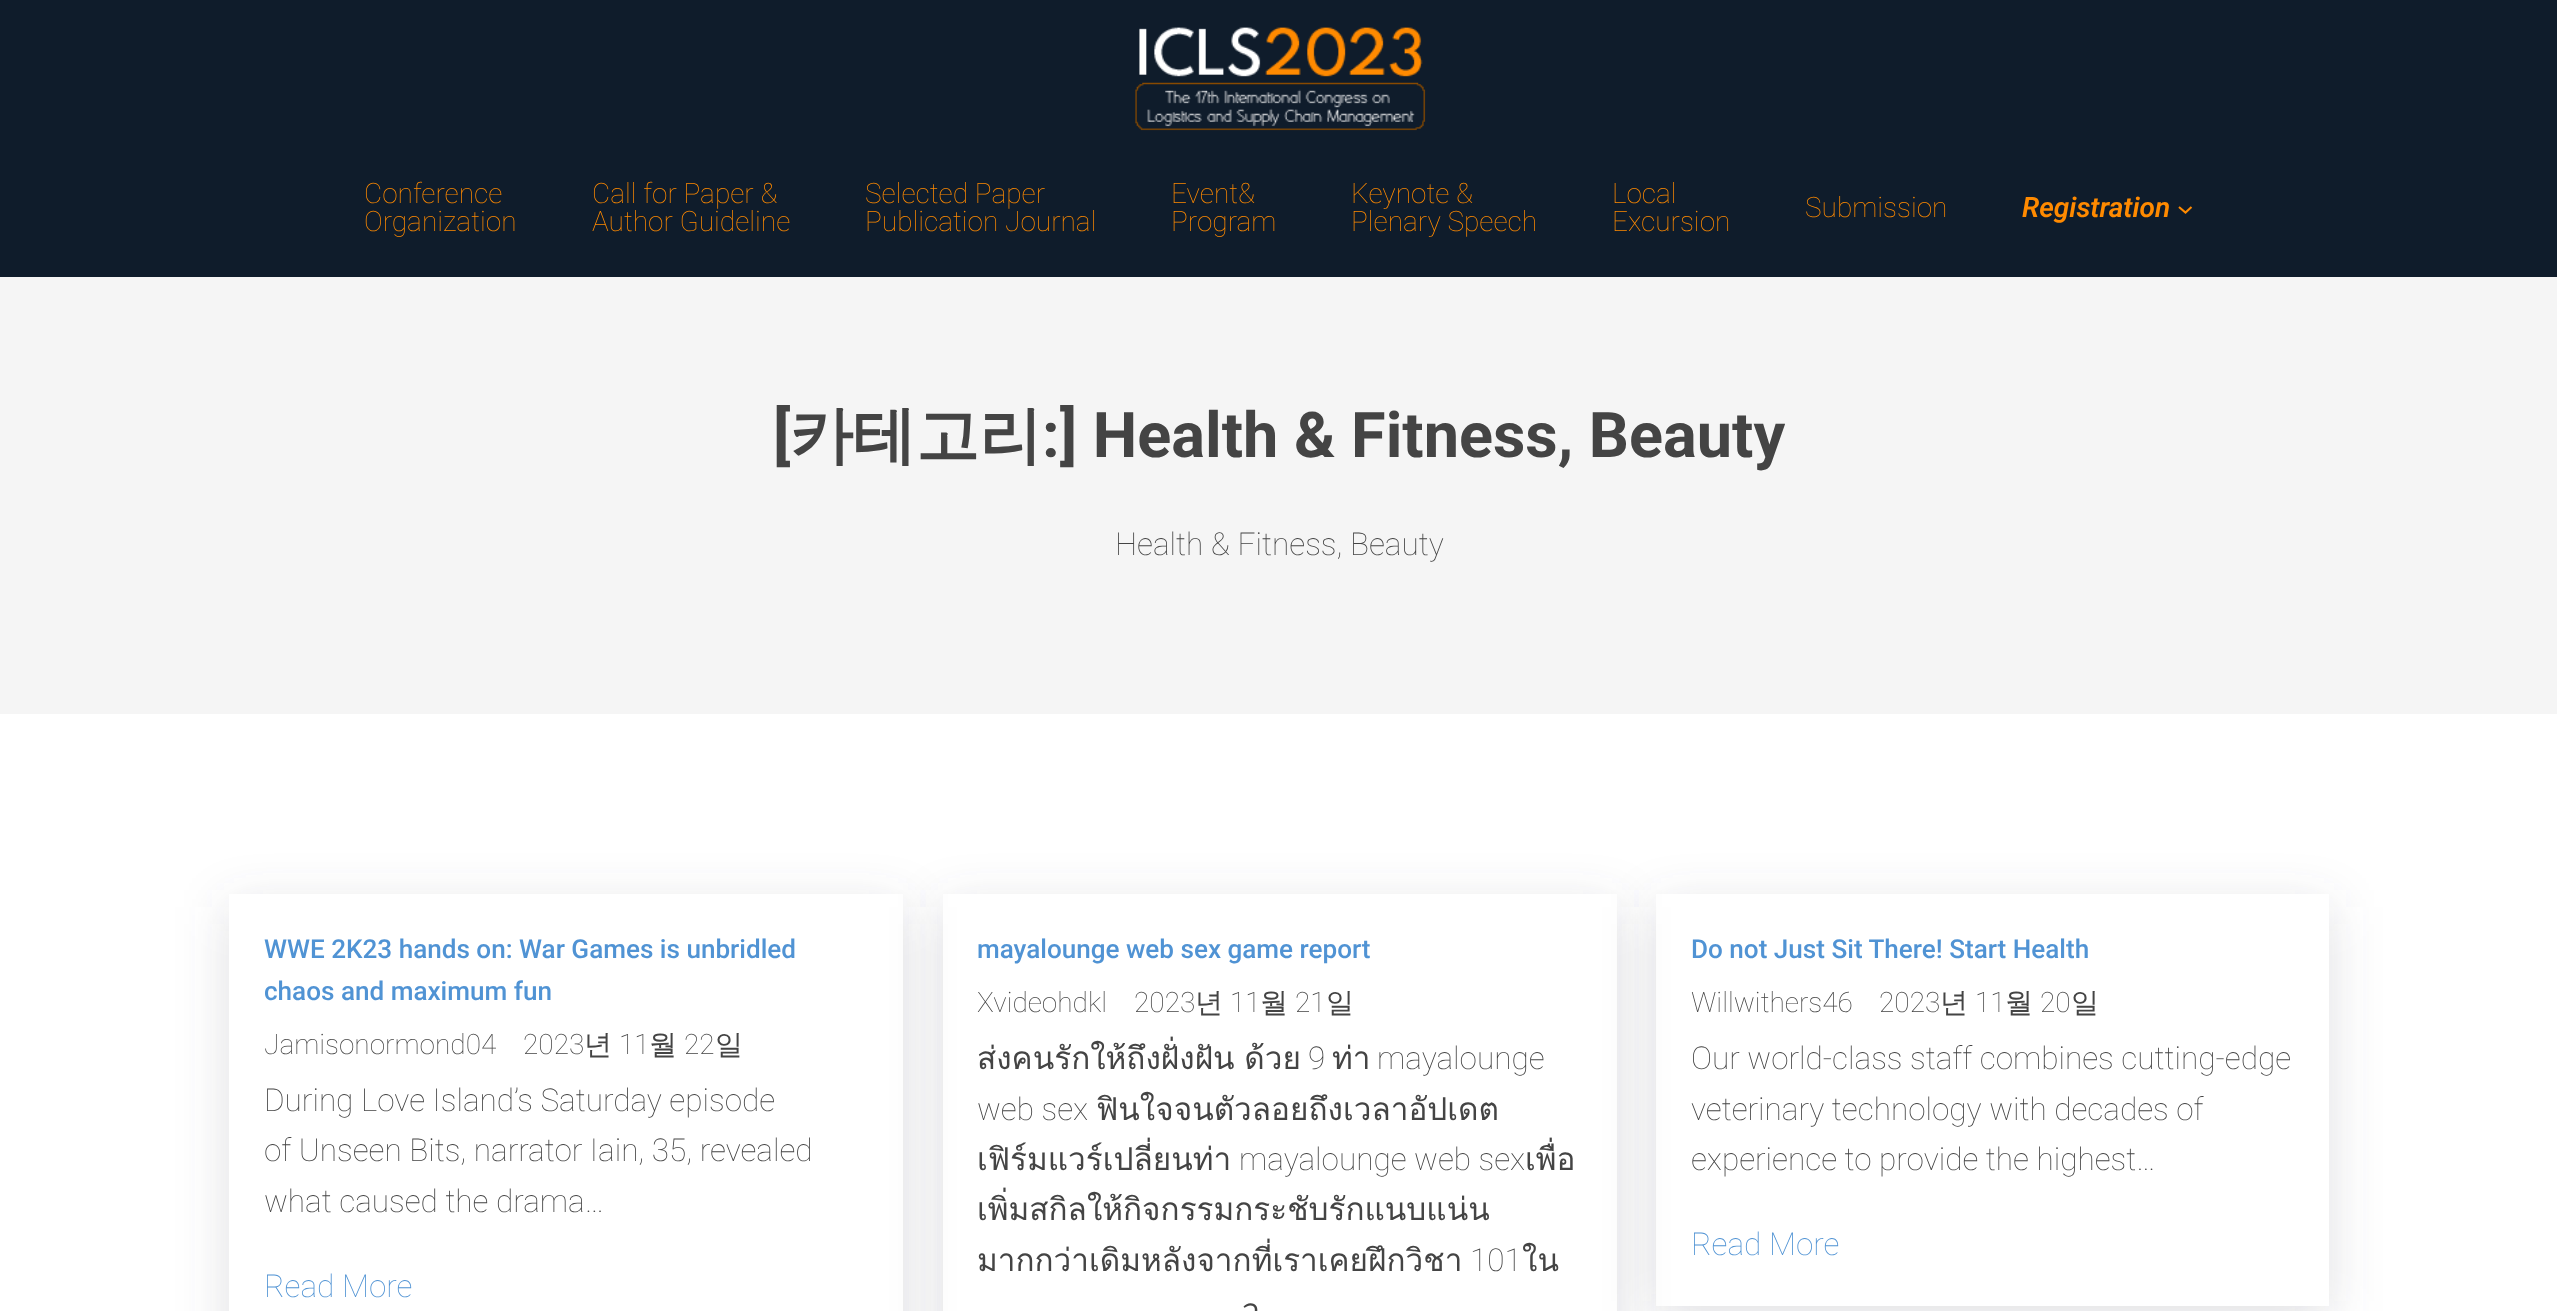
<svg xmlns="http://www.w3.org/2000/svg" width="2557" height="1311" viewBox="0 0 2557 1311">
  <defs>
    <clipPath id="clip1"><path d="M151 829H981V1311H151ZM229 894H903V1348H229Z" clip-rule="evenodd"/></clipPath>
    <filter id="blur1" x="-50%" y="-200%" width="200%" height="500%"><feGaussianBlur stdDeviation="25.5"/></filter>
    <clipPath id="clip2"><path d="M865 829H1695V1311H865ZM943 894H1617V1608H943Z" clip-rule="evenodd"/></clipPath>
    <clipPath id="clip3"><path d="M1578 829H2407V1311H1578ZM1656 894H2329V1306H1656Z" clip-rule="evenodd"/></clipPath>
  </defs>
  <rect width="100%" height="100%" fill="#f5f5f5"/>
  <rect x="0" y="0" width="2557" height="277" fill="#0f1c2b"/>
  <image x="1135" y="27" width="291" height="104" href="img1.png"/>
  <text x="364" y="203" font-family="Roboto" font-size="28" font-weight="100" fill="#ff8a00">Conference</text>
  <text x="364" y="231" font-family="Roboto" font-size="28" font-weight="100" fill="#ff8a00">Organization</text>
  <text x="592" y="203" font-family="Roboto" font-size="28" font-weight="100" fill="#ff8a00">Call for Paper &amp;</text>
  <text x="592" y="231" font-family="Roboto" font-size="28" font-weight="100" fill="#ff8a00">Author Guideline</text>
  <text x="865" y="203" font-family="Roboto" font-size="28" font-weight="100" fill="#ff8a00">Selected Paper</text>
  <text x="865" y="231" font-family="Roboto" font-size="28" font-weight="100" fill="#ff8a00">Publication Journal</text>
  <text x="1171" y="203" font-family="Roboto" font-size="28" font-weight="100" fill="#ff8a00">Event&amp;</text>
  <text x="1171" y="231" font-family="Roboto" font-size="28" font-weight="100" fill="#ff8a00">Program</text>
  <text x="1351" y="203" font-family="Roboto" font-size="28" font-weight="100" fill="#ff8a00">Keynote &amp;</text>
  <text x="1351" y="231" font-family="Roboto" font-size="28" font-weight="100" fill="#ff8a00">Plenary Speech</text>
  <text x="1612" y="203" font-family="Roboto" font-size="28" font-weight="100" fill="#ff8a00">Local</text>
  <text x="1612" y="231" font-family="Roboto" font-size="28" font-weight="100" fill="#ff8a00">Excursion</text>
  <text x="1805" y="217" font-family="Roboto" font-size="28" font-weight="100" fill="#ff8a00">Submission</text>
  <text x="2022" y="217" font-family="Roboto" font-size="28" font-weight="600" font-style="italic" fill="#ff8a00">Registration</text>
  <path d="M2179 207L2185.5 212.5L2191.5 207" fill="none" stroke="#ff8a00" stroke-width="2.1"/>
  <text x="773" y="457" font-family="Roboto" font-size="63" font-weight="bold" fill="#444444">[</text>
  <text x="790" y="457" font-family="WenQuanYi Zen Hei" font-size="63" font-weight="bold" fill="#444444">카테고리</text>
  <text x="1042" y="457" font-family="Roboto" font-size="63" font-weight="bold" fill="#444444">:] Health &amp; Fitness, Beauty</text>
  <text x="1115" y="555" font-family="Roboto" font-size="31.5" font-weight="100" fill="#444444">Health &amp; Fitness, Beauty</text>
  <rect x="0" y="714" width="2557" height="597" fill="#ffffff"/>
  <g clip-path="url(#clip1)">
    <rect x="229" y="907" width="674" height="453" fill="#64646f" fill-opacity="0.2" filter="url(#blur1)"/>
  </g>
  <text x="264" y="958" font-family="Roboto" font-size="26.1" font-weight="500" fill="#5093d4">WWE 2K23 hands on: War Games is unbridled</text>
  <text x="264" y="1000" font-family="Roboto" font-size="26.1" font-weight="500" fill="#5093d4">chaos and maximum fun</text>
  <text x="264" y="1054" font-family="Roboto" font-size="28" font-weight="100" fill="#444444">Jamisonormond04</text>
  <text x="523" y="1054" font-family="Roboto" font-size="28" font-weight="100" fill="#444444">2023</text>
  <text x="584" y="1054" font-family="WenQuanYi Zen Hei" font-size="28" font-weight="500" fill="#444444">년</text>
  <text x="619" y="1054" font-family="Roboto" font-size="28" font-weight="100" fill="#444444">11</text>
  <text x="649" y="1054" font-family="WenQuanYi Zen Hei" font-size="28" font-weight="500" fill="#444444">월</text>
  <text x="684" y="1054" font-family="Roboto" font-size="28" font-weight="100" fill="#444444">22</text>
  <text x="715" y="1054" font-family="WenQuanYi Zen Hei" font-size="28" font-weight="500" fill="#444444">일</text>
  <text x="264" y="1111" font-family="Roboto" font-size="31.5" font-weight="100" fill="#444444">During Love Island’s Saturday episode</text>
  <text x="264" y="1161" font-family="Roboto" font-size="31.5" font-weight="100" fill="#444444">of Unseen Bits, narrator Iain, 35, revealed</text>
  <text x="264" y="1212" font-family="Roboto" font-size="31.5" font-weight="100" fill="#444444">what caused the drama…</text>
  <text x="264" y="1297" font-family="Roboto" font-size="31.5" font-weight="100" fill="#5093d4">Read More</text>
  <g clip-path="url(#clip2)">
    <rect x="943" y="907" width="674" height="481" fill="#64646f" fill-opacity="0.2" filter="url(#blur1)"/>
  </g>
  <text x="977" y="958" font-family="Roboto" font-size="26.1" font-weight="500" fill="#5093d4">mayalounge web sex game report</text>
  <text x="977" y="1012" font-family="Roboto" font-size="28" font-weight="100" fill="#444444">Xvideohdkl</text>
  <text x="1134" y="1012" font-family="Roboto" font-size="28" font-weight="100" fill="#444444">2023</text>
  <text x="1195" y="1012" font-family="WenQuanYi Zen Hei" font-size="28" font-weight="500" fill="#444444">년</text>
  <text x="1230" y="1012" font-family="Roboto" font-size="28" font-weight="100" fill="#444444">11</text>
  <text x="1260" y="1012" font-family="WenQuanYi Zen Hei" font-size="28" font-weight="500" fill="#444444">월</text>
  <text x="1295" y="1012" font-family="Roboto" font-size="28" font-weight="100" fill="#444444">21</text>
  <text x="1326" y="1012" font-family="WenQuanYi Zen Hei" font-size="28" font-weight="500" fill="#444444">일</text>
  <text x="977" y="1069" word-spacing="-1" font-family="Loma" font-size="31.5" fill="#444444">ส่งคนรักให้ถึงฝั่งฝัน ด้วย</text>
  <text x="1308" y="1069" font-family="Roboto" font-size="31.5" font-weight="100" fill="#444444">9</text>
  <text x="1332" y="1069" font-family="Loma" font-size="31.5" fill="#444444">ท่า</text>
  <text x="1377" y="1069" font-family="Roboto" font-size="31.5" font-weight="100" fill="#444444">mayalounge</text>
  <text x="977" y="1120" font-family="Roboto" font-size="31.5" font-weight="100" fill="#444444">web sex</text>
  <text x="1096" y="1120" font-family="Loma" font-size="31.5" fill="#444444">ฟินใจจนตัวลอยถึงเวลาอัปเดต</text>
  <text x="977" y="1170" font-family="Loma" font-size="31.5" fill="#444444">เฟิร์มแวร์เปลี่ยนท่า</text>
  <text x="1239" y="1170" font-family="Roboto" font-size="31.5" font-weight="100" fill="#444444">mayalounge web sex</text>
  <text x="1525" y="1170" font-family="Loma" font-size="31.5" fill="#444444">เพื่อ</text>
  <text x="977" y="1220" font-family="Loma" font-size="31.5" fill="#444444">เพิ่มสกิลให้กิจกรรมกระชับรักแนบแน่น</text>
  <text x="977" y="1271" font-family="Loma" font-size="31.5" fill="#444444">มากกว่าเดิมหลังจากที่เราเคยฝึกวิชา</text>
  <text x="1470" y="1271" font-family="Roboto" font-size="31.5" font-weight="100" fill="#444444">101</text>
  <text x="1522" y="1271" font-family="Loma" font-size="31.5" fill="#444444">ใน</text>
  <text x="1242" y="1321" word-spacing="-3" font-family="Loma" font-size="31.5" fill="#444444">ว</text>
  <g clip-path="url(#clip3)">
    <rect x="1656" y="907" width="673" height="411" fill="#64646f" fill-opacity="0.2" filter="url(#blur1)"/>
  </g>
  <text x="1691" y="958" font-family="Roboto" font-size="26.1" font-weight="500" fill="#5093d4">Do not Just Sit There! Start Health</text>
  <text x="1691" y="1012" font-family="Roboto" font-size="28" font-weight="100" fill="#444444">Willwithers46</text>
  <text x="1879" y="1012" font-family="Roboto" font-size="28" font-weight="100" fill="#444444">2023</text>
  <text x="1940" y="1012" font-family="WenQuanYi Zen Hei" font-size="28" font-weight="500" fill="#444444">년</text>
  <text x="1975" y="1012" font-family="Roboto" font-size="28" font-weight="100" fill="#444444">11</text>
  <text x="2005" y="1012" font-family="WenQuanYi Zen Hei" font-size="28" font-weight="500" fill="#444444">월</text>
  <text x="2040" y="1012" font-family="Roboto" font-size="28" font-weight="100" fill="#444444">20</text>
  <text x="2071" y="1012" font-family="WenQuanYi Zen Hei" font-size="28" font-weight="500" fill="#444444">일</text>
  <text x="1691" y="1069" font-family="Roboto" font-size="31.5" font-weight="100" fill="#444444">Our world-class staff combines cutting-edge</text>
  <text x="1691" y="1120" font-family="Roboto" font-size="31.5" font-weight="100" fill="#444444">veterinary technology with decades of</text>
  <text x="1691" y="1170" font-family="Roboto" font-size="31.5" font-weight="100" fill="#444444">experience to provide the highest…</text>
  <text x="1691" y="1255" font-family="Roboto" font-size="31.5" font-weight="100" fill="#5093d4">Read More</text>
</svg>
